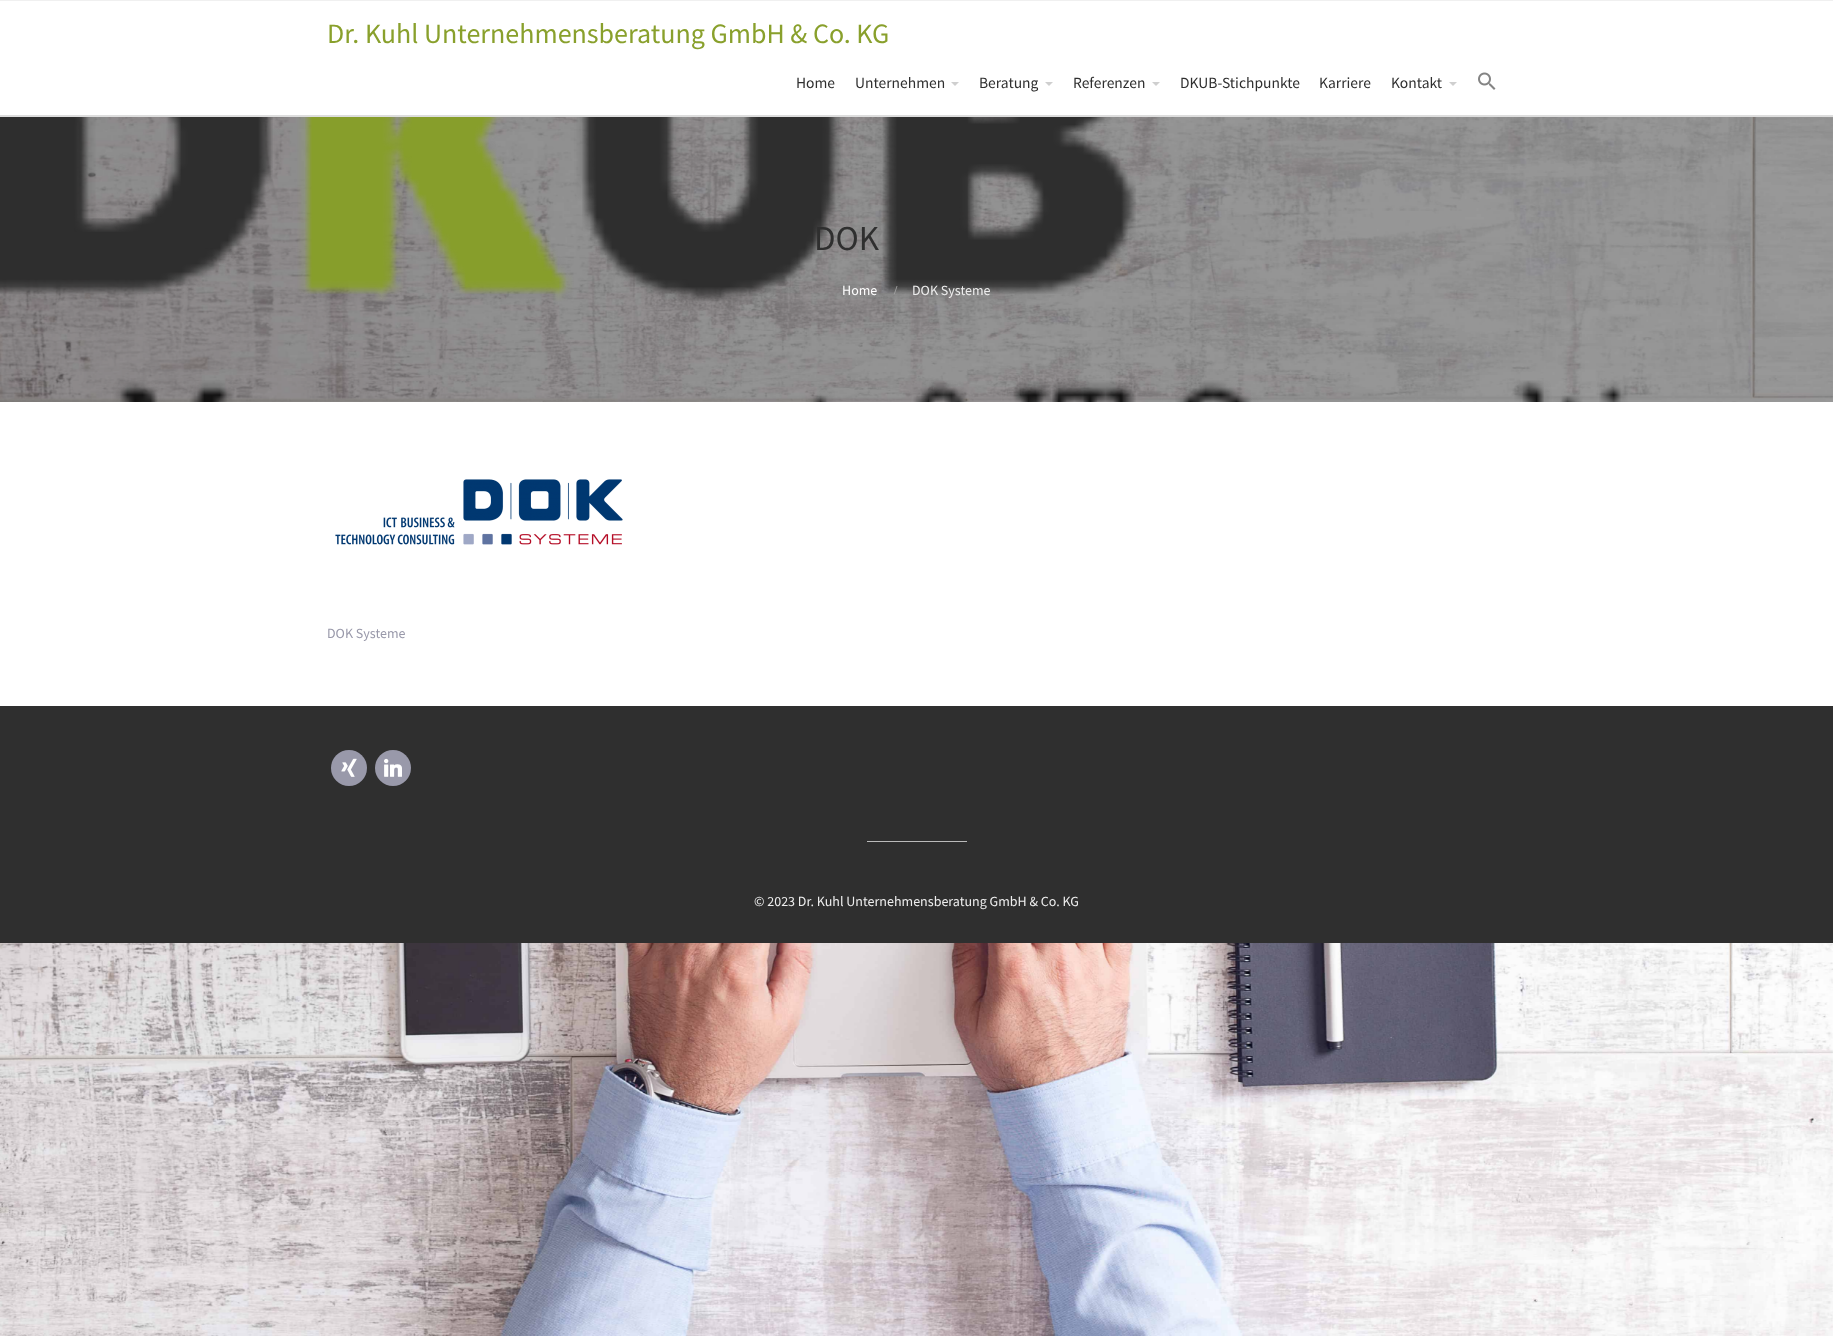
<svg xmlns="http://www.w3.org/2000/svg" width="1833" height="1336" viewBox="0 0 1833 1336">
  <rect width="100%" height="100%" fill="#ffffff"/>
  <image x="0" y="117" width="1833" height="1219" href="img1.png"/>
  <rect x="0" y="0" width="1833" height="1" fill="#f0f0f0"/>
  <rect x="0" y="115" width="1833" height="2" fill="#dddddd"/>
  <text x="327" y="43" font-family="Source Sans Pro" font-size="28" fill="#89a02c">Dr. Kuhl Unternehmensberatung GmbH &amp; Co. KG</text>
  <text x="796" y="88" font-family="Source Sans Pro" font-size="15.5" fill="#2f2f2f">Home</text>
  <text x="855" y="88" font-family="Source Sans Pro" font-size="15.5" fill="#2f2f2f">Unternehmen</text>
  <path d="M951 82H959L955 86Z" fill="#cfcfcf"/>
  <text x="979" y="88" font-family="Source Sans Pro" font-size="15.5" fill="#2f2f2f">Beratung</text>
  <path d="M1045 82H1053L1049 86Z" fill="#cfcfcf"/>
  <text x="1073" y="88" font-family="Source Sans Pro" font-size="15.5" fill="#2f2f2f">Referenzen</text>
  <path d="M1152 82H1160L1156 86Z" fill="#cfcfcf"/>
  <text x="1180" y="88" font-family="Source Sans Pro" font-size="15.5" fill="#2f2f2f">DKUB-Stichpunkte</text>
  <text x="1319" y="88" font-family="Source Sans Pro" font-size="15.5" fill="#2f2f2f">Karriere</text>
  <text x="1391" y="88" font-family="Source Sans Pro" font-size="15.5" fill="#2f2f2f">Kontakt</text>
  <path d="M1449 82H1457L1453 86Z" fill="#cfcfcf"/>
  <image x="1478" y="72" width="18" height="18" href="img2.png"/>
  <rect x="0" y="117" width="1833" height="285" fill="#000000" fill-opacity="0.4"/>
  <image x="0" y="117" width="1628" height="285" href="img3.png"/>
  <text x="814" y="250" font-family="Source Sans Pro" font-size="35" fill="#2f2f2f">DOK</text>
  <text x="842" y="295" font-family="Source Sans Pro" font-size="14" fill="#ffffff">Home</text>
  <text x="894" y="294" font-family="Liberation Serif" font-size="12" font-weight="bold" fill="#a1a1a1">/</text>
  <text x="912" y="295" font-family="Source Sans Pro" font-size="14" fill="#eeeeee">DOK Systeme</text>
  <rect x="0" y="402" width="1833" height="304" fill="#ffffff"/>
  <image x="335" y="479" width="288" height="66" href="img4.png"/>
  <text x="327" y="638" font-family="Source Sans Pro" font-size="14" fill="#9999aa">DOK Systeme</text>
  <rect x="0" y="706" width="1833" height="237" fill="#2f2f2f"/>
  <circle cx="349" cy="768" r="18" fill="#9999aa"/>
  <image x="341" y="758" width="16" height="19" href="img5.png"/>
  <circle cx="393" cy="768" r="18" fill="#9999aa"/>
  <image x="384" y="758" width="18" height="19" href="img6.png"/>
  <rect x="867" y="841" width="100" height="1" fill="#bbbbbb"/>
  <text x="754" y="906" font-family="Source Sans Pro" font-size="14" fill="#eeeeee">© 2023 Dr. Kuhl Unternehmensberatung GmbH &amp; Co. KG</text>
</svg>
